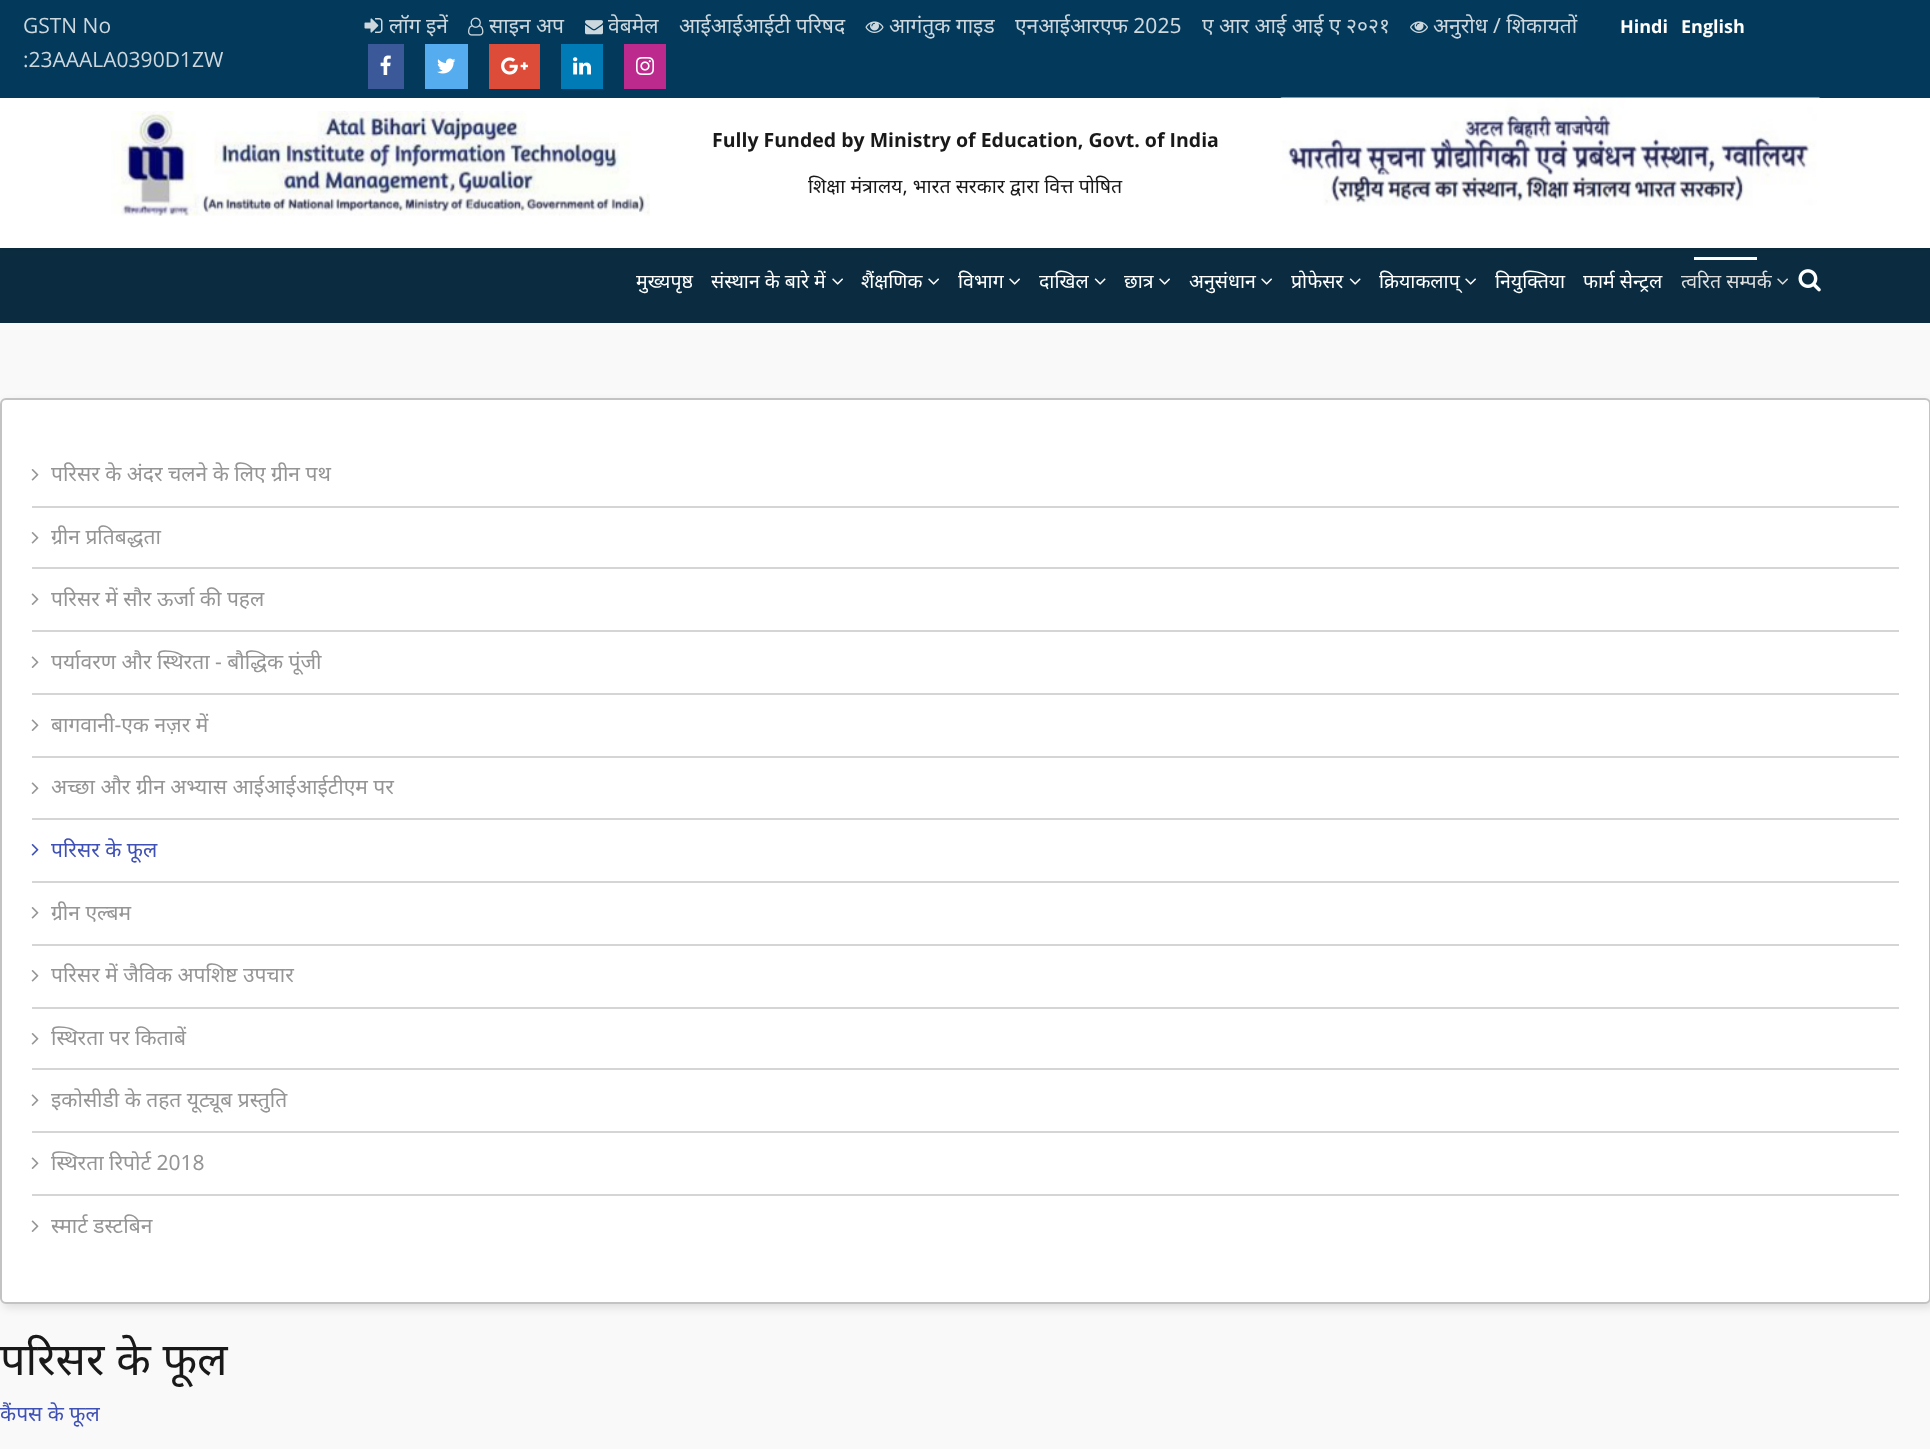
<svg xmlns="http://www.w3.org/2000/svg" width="1930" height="1449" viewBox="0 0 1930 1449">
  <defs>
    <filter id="blur1" x="-50%" y="-200%" width="200%" height="500%"><feGaussianBlur stdDeviation="2"/></filter>
    <filter id="blur2" x="-50%" y="-200%" width="200%" height="500%"><feGaussianBlur stdDeviation="4"/></filter>
  </defs>
  <rect width="100%" height="100%" fill="#f9f9f9"/>
  <rect x="0" y="0" width="1930" height="98" fill="#03395a"/>
  <text x="23" y="33" font-family="Open Sans" font-size="21" fill="#cdd7de">GSTN No</text>
  <text x="23" y="67" font-family="Open Sans" font-size="21" fill="#cdd7de">:23AAALA0390D1ZW</text>
  <image x="364" y="18" width="19" height="15" href="img1.png"/>
  <text x="389" y="33" font-family="Noto Sans" font-size="21" fill="#cdd7de">लॉग इनें</text>
  <image x="468" y="17" width="16" height="19" href="img2.png"/>
  <text x="489" y="33" font-family="Noto Sans" font-size="21" fill="#cdd7de">साइन अप</text>
  <image x="585" y="20" width="18" height="15" href="img3.png"/>
  <text x="608" y="33" font-family="Noto Sans" font-size="21" fill="#cdd7de">वेबमेल</text>
  <text x="679" y="33" font-family="Noto Sans" font-size="21" fill="#cdd7de">आईआईआईटी परिषद</text>
  <image x="865" y="21" width="19" height="12" href="img4.png"/>
  <text x="889" y="33" font-family="Noto Sans" font-size="21" fill="#cdd7de">आगंतुक गाइड</text>
  <text x="1015" y="33" font-family="Noto Sans" font-size="21" fill="#cdd7de">एनआईआरएफ 2025</text>
  <text x="1202" y="33" font-family="Noto Sans" font-size="21" fill="#cdd7de">ए आर आई आई ए २०२१</text>
  <image x="1410" y="21" width="18" height="12" href="img5.png"/>
  <text x="1433" y="33" font-family="Noto Sans" font-size="21" fill="#cdd7de">अनुरोध / शिकायतों</text>
  <text x="1620" y="33" font-family="Open Sans" font-size="18" font-weight="bold" fill="#ffffff">Hindi</text>
  <text x="1681" y="33" font-family="Open Sans" font-size="18" font-weight="bold" fill="#ffffff">English</text>
  <rect x="368" y="44" width="36" height="45" fill="#3b5998"/>
  <image x="380" y="55" width="11" height="20" href="img6.png"/>
  <rect x="425" y="44" width="43" height="45" fill="#55acee"/>
  <image x="437" y="58" width="19" height="16" href="img7.png"/>
  <rect x="489" y="44" width="51" height="45" fill="#dd4b39"/>
  <image x="501" y="57" width="27" height="18" href="img8.png"/>
  <rect x="561" y="44" width="42" height="45" fill="#007bb5"/>
  <image x="573" y="57" width="18" height="18" href="img9.png"/>
  <rect x="624" y="44" width="42" height="45" fill="#bc2a8d"/>
  <image x="636" y="57" width="18" height="18" href="img10.png"/>
  <rect x="0" y="248" width="1930" height="75" fill="#0b2c40"/>
  <rect x="0" y="102" width="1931" height="150" fill="#000000" fill-opacity="0.05" filter="url(#blur1)"/>
  <rect x="0" y="98" width="1930" height="150" fill="#ffffff"/>
  <image x="111" y="111" width="539" height="105" href="img11.png"/>
  <text x="712" y="147" font-family="Open Sans" font-size="19.5" font-weight="bold" fill="#1a1919">Fully Funded by Ministry of Education, Govt. of India</text>
  <text x="808" y="193" font-family="Noto Sans" font-size="19.5" fill="#1a1919">शिक्षा मंत्रालय, भारत सरकार द्वारा वित्त पोषित</text>
  <image x="1280" y="97" width="541" height="109" href="img12.png"/>
  <text x="636" y="288" font-family="Noto Sans" font-size="19.5" fill="#ffffff">मुख्यपृष्ठ</text>
  <text x="711" y="288" font-family="Noto Sans" font-size="19.5" fill="#ffffff">संस्थान के बारे में</text>
  <image x="832" y="278" width="11" height="7" href="img13.png"/>
  <text x="861" y="288" font-family="Noto Sans" font-size="19.5" fill="#ffffff">शैंक्षणिक</text>
  <image x="928" y="278" width="11" height="7" href="img13.png"/>
  <text x="958" y="288" font-family="Noto Sans" font-size="19.5" fill="#ffffff">विभाग</text>
  <image x="1009" y="278" width="11" height="7" href="img13.png"/>
  <text x="1039" y="288" font-family="Noto Sans" font-size="19.5" fill="#ffffff">दाखिल</text>
  <image x="1094" y="278" width="12" height="7" href="img14.png"/>
  <text x="1124" y="288" font-family="Noto Sans" font-size="19.5" fill="#ffffff">छात्र</text>
  <image x="1159" y="278" width="11" height="7" href="img13.png"/>
  <text x="1189" y="288" font-family="Noto Sans" font-size="19.5" fill="#ffffff">अनुसंधान</text>
  <image x="1261" y="278" width="11" height="7" href="img13.png"/>
  <text x="1291" y="288" font-family="Noto Sans" font-size="19.5" fill="#ffffff">प्रोफेसर</text>
  <image x="1349" y="278" width="12" height="7" href="img14.png"/>
  <text x="1379" y="288" font-family="Noto Sans" font-size="19.5" fill="#ffffff">क्रियाकलाप्</text>
  <image x="1465" y="278" width="11" height="7" href="img13.png"/>
  <text x="1495" y="288" font-family="Noto Sans" font-size="19.5" fill="#ffffff">नियुक्तिया</text>
  <text x="1583" y="288" font-family="Noto Sans" font-size="19.5" fill="#ffffff">फार्म सेन्ट्रल</text>
  <rect x="1694" y="257" width="63" height="3" fill="#ffffff"/>
  <text x="1681" y="288" font-family="Noto Sans" font-size="19.5" fill="#dedede">त्वरित सम्पर्क</text>
  <image x="1777" y="278" width="11" height="7" href="img15.png"/>
  <image x="1798" y="269" width="23" height="23" href="img16.png"/>
  <rect x="3" y="402" width="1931" height="906" rx="6" fill="#000000" fill-opacity="0.1" filter="url(#blur2)"/>
  <rect x="1" y="399" width="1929" height="904" rx="5" fill="#ffffff" stroke="#c3c3c3" stroke-width="2"/>
  <rect x="32" y="506" width="1867" height="2" fill="#d5d5d5"/>
  <image x="31" y="469" width="8" height="12" href="img17.png"/>
  <text x="51" y="481" font-family="Noto Sans" font-size="21" fill="#959595">परिसर के अंदर चलने के लिए ग्रीन पथ</text>
  <rect x="32" y="567" width="1867" height="2" fill="#d5d5d5"/>
  <image x="31" y="532" width="8" height="12" href="img17.png"/>
  <text x="51" y="544" font-family="Noto Sans" font-size="21" fill="#959595">ग्रीन प्रतिबद्धता</text>
  <rect x="32" y="630" width="1867" height="2" fill="#d5d5d5"/>
  <image x="31" y="593" width="8" height="12" href="img18.png"/>
  <text x="51" y="606" font-family="Noto Sans" font-size="21" fill="#959595">परिसर में सौर ऊर्जा की पहल</text>
  <rect x="32" y="693" width="1867" height="2" fill="#d5d5d5"/>
  <image x="31" y="656" width="8" height="12" href="img18.png"/>
  <text x="51" y="669" font-family="Noto Sans" font-size="21" fill="#959595">पर्यावरण और स्थिरता - बौद्धिक पूंजी</text>
  <rect x="32" y="756" width="1867" height="2" fill="#d5d5d5"/>
  <image x="31" y="719" width="8" height="12" href="img18.png"/>
  <text x="51" y="732" font-family="Noto Sans" font-size="21" fill="#959595">बागवानी-एक नज़र में</text>
  <rect x="32" y="818" width="1867" height="2" fill="#d5d5d5"/>
  <image x="31" y="782" width="8" height="12" href="img18.png"/>
  <text x="51" y="794" font-family="Noto Sans" font-size="21" fill="#959595">अच्छा और ग्रीन अभ्यास आईआईआईटीएम पर</text>
  <rect x="32" y="881" width="1867" height="2" fill="#d5d5d5"/>
  <image x="31" y="844" width="8" height="12" href="img19.png"/>
  <text x="51" y="857" font-family="Noto Sans" font-size="21" fill="#3f51b5">परिसर के फूल</text>
  <rect x="32" y="944" width="1867" height="2" fill="#d5d5d5"/>
  <image x="31" y="907" width="8" height="12" href="img17.png"/>
  <text x="51" y="920" font-family="Noto Sans" font-size="21" fill="#959595">ग्रीन एल्बम</text>
  <rect x="32" y="1007" width="1867" height="2" fill="#d5d5d5"/>
  <image x="31" y="970" width="8" height="12" href="img17.png"/>
  <text x="51" y="982" font-family="Noto Sans" font-size="21" fill="#959595">परिसर में जैविक अपशिष्ट उपचार</text>
  <rect x="32" y="1068" width="1867" height="2" fill="#d5d5d5"/>
  <image x="31" y="1033" width="8" height="12" href="img17.png"/>
  <text x="51" y="1045" font-family="Noto Sans" font-size="21" fill="#959595">स्थिरता पर किताबें</text>
  <rect x="32" y="1131" width="1867" height="2" fill="#d5d5d5"/>
  <image x="31" y="1094" width="8" height="12" href="img18.png"/>
  <text x="51" y="1107" font-family="Noto Sans" font-size="21" fill="#959595">इकोसीडी के तहत यूट्यूब प्रस्तुति</text>
  <rect x="32" y="1194" width="1867" height="2" fill="#d5d5d5"/>
  <image x="31" y="1157" width="8" height="12" href="img18.png"/>
  <text x="51" y="1170" font-family="Noto Sans" font-size="21" fill="#959595">स्थिरता रिपोर्ट 2018</text>
  <image x="31" y="1220" width="8" height="12" href="img18.png"/>
  <text x="51" y="1233" font-family="Noto Sans" font-size="21" fill="#959595">स्मार्ट डस्टबिन</text>
  <text x="0" y="1375" font-family="Noto Sans" font-size="45" fill="#1a1919">परिसर के फूल</text>
  <text x="0" y="1421" font-family="Noto Sans" font-size="21" fill="#3f51b5">कैंपस के फूल</text>
</svg>
